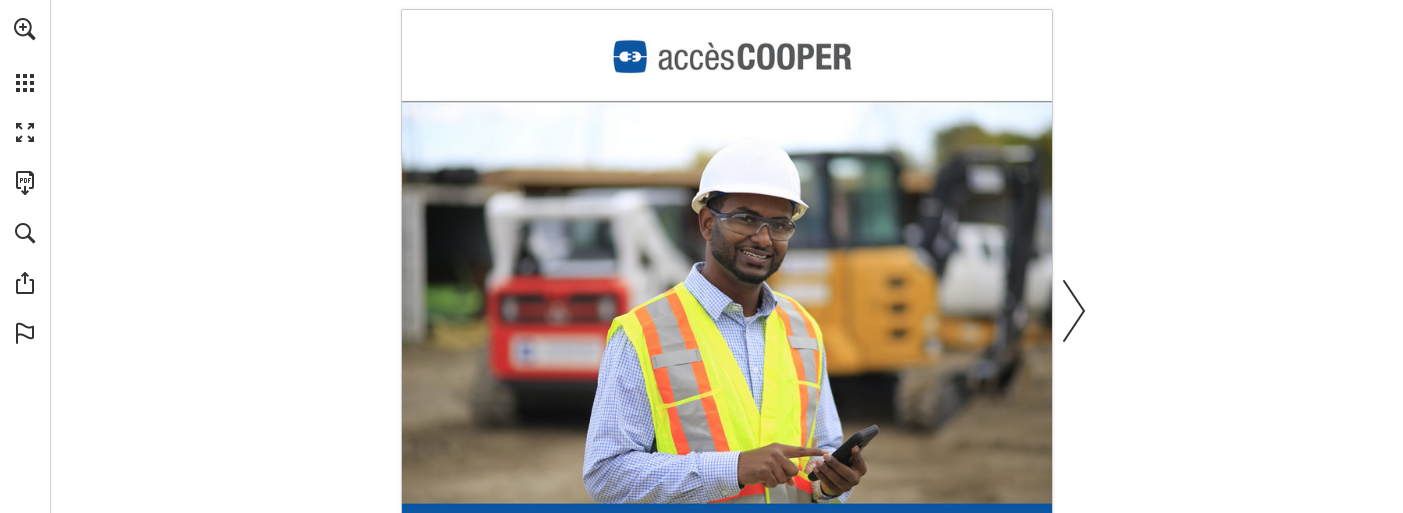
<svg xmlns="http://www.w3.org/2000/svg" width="1403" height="513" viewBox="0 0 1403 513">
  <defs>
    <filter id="blur1" x="-50%" y="-200%" width="200%" height="500%"><feGaussianBlur stdDeviation="0.5"/></filter>
    <filter id="blur2" x="-50%" y="-200%" width="200%" height="500%"><feGaussianBlur stdDeviation="1"/></filter>
  </defs>
  <rect width="100%" height="100%" fill="#ffffff"/>
  <rect x="1" y="0" width="50" height="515" fill="#000000" fill-opacity="0.2" filter="url(#blur1)"/>
  <rect x="0" y="0" width="50" height="513" fill="#ffffff"/>
  <image x="14" y="18" width="22" height="23" href="img1.png"/>
  <image x="16" y="74" width="18" height="18" href="img2.png"/>
  <image x="16" y="123" width="18" height="19" href="img3.png"/>
  <image x="16" y="171" width="18" height="24" href="img4.png"/>
  <image x="15" y="223" width="21" height="21" href="img5.png"/>
  <image x="16" y="272" width="18" height="22" href="img6.png"/>
  <image x="16" y="322" width="18" height="22" href="img7.png"/>
  <rect x="400" y="8" width="654" height="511" rx="3" fill="#121212" fill-opacity="0.05" filter="url(#blur2)"/>
  <rect x="401.5" y="9.5" width="651" height="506" rx="1.5" fill="#ffffff" stroke="#cccccc"/>
  <image x="402" y="10" width="650" height="503" href="img8.png"/>
  <image x="1063" y="280" width="23" height="62" href="img9.png"/>
</svg>
